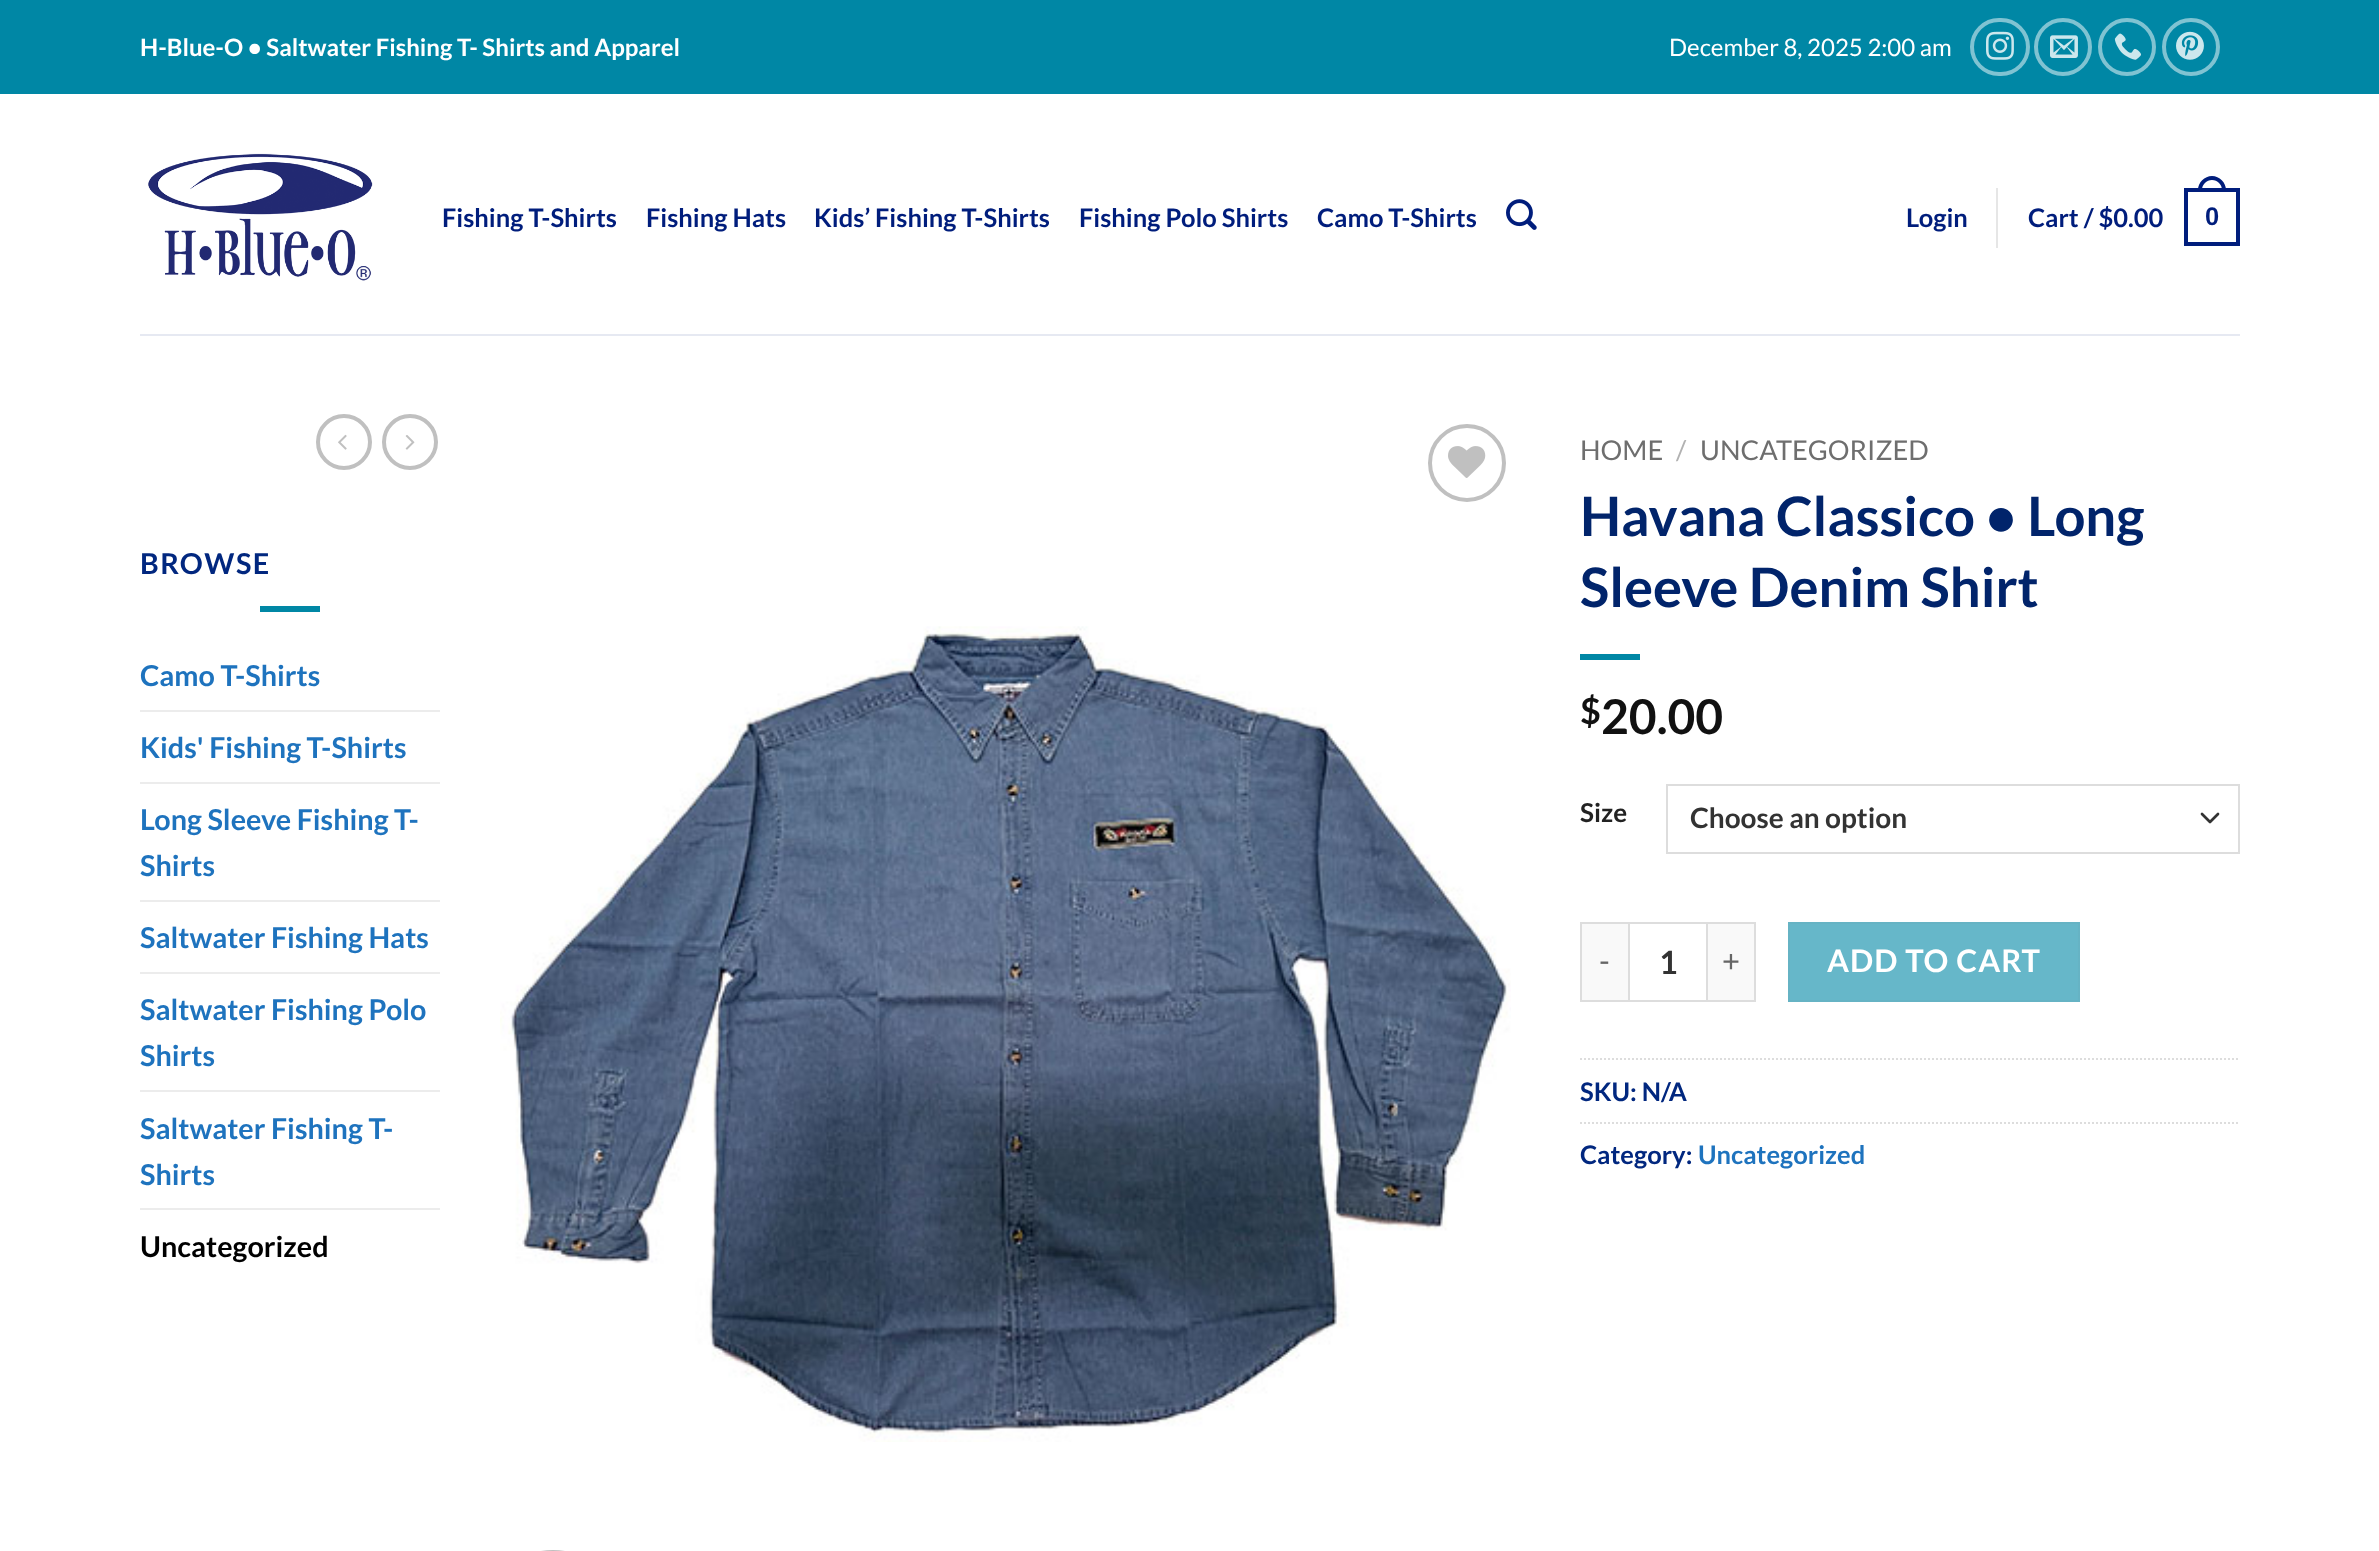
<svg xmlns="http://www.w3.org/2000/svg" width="2379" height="1551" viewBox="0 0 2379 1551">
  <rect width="100%" height="100%" fill="#ffffff"/>
  <rect x="0" y="0" width="2379" height="94" fill="#0087a5"/>
  <text x="140" y="56" font-family="Lato" font-size="24" font-weight="bold" fill="#ffffff">H-Blue-O • Saltwater Fishing T- Shirts and Apparel</text>
  <text x="1669" y="56" font-family="Lato" font-size="24" fill="#ffffff">December 8, 2025 2:00 am</text>
  <rect x="1972" y="20" width="56" height="54" rx="27" fill="none" stroke="#80c3d2" stroke-width="4"/>
  <image x="1986" y="31" width="28" height="29" href="img1.png"/>
  <circle cx="2063" cy="47" r="27" fill="none" stroke="#80c3d2" stroke-width="4"/>
  <image x="2050" y="35" width="28" height="23" href="img2.png"/>
  <circle cx="2127" cy="47" r="27" fill="none" stroke="#80c3d2" stroke-width="4"/>
  <image x="2114" y="33" width="27" height="27" href="img3.png"/>
  <circle cx="2191" cy="47" r="27" fill="none" stroke="#80c3d2" stroke-width="4"/>
  <image x="2176" y="31" width="28" height="29" href="img4.png"/>
  <image x="148" y="153" width="225" height="128" href="img5.png"/>
  <text x="442" y="227" font-family="Lato" font-size="25.5" font-weight="bold" fill="#001d7c">Fishing T-Shirts</text>
  <text x="646" y="227" font-family="Lato" font-size="25.5" font-weight="bold" fill="#001d7c">Fishing Hats</text>
  <text x="814" y="227" font-family="Lato" font-size="25.5" font-weight="bold" fill="#001d7c">Kids’ Fishing T-Shirts</text>
  <text x="1079" y="227" font-family="Lato" font-size="25.5" font-weight="bold" fill="#001d7c">Fishing Polo Shirts</text>
  <text x="1317" y="227" font-family="Lato" font-size="25.5" font-weight="bold" fill="#001d7c">Camo T-Shirts</text>
  <image x="1506" y="199" width="31" height="31" href="img6.png"/>
  <text x="1906" y="227" font-family="Lato" font-size="25.5" font-weight="bold" fill="#001d7c">Login</text>
  <rect x="1996" y="188" width="2" height="60" fill="#e6e6e6"/>
  <text x="2028" y="227" font-family="Lato" font-size="25.5" font-weight="bold" fill="#001d7c">Cart / $0.00</text>
  <rect x="2186" y="190" width="52" height="54" fill="none" stroke="#001d7c" stroke-width="4"/>
  <path d="M2212 176C2219.5 176 2226 182.5 2226 190V192H2198V190C2198 182.5 2204.5 176 2212 176ZM2212 180C2217.5 180 2222 184.5 2222 190V192H2202V190C2202 184.5 2206.5 180 2212 180Z" fill="#001d7c" fill-rule="evenodd"/>
  <text x="2205" y="225" font-family="Liberation Sans" font-size="25.5" font-weight="bold" fill="#001d7c">0</text>
  <rect x="140" y="334" width="2100" height="2" fill="#e6e9f2"/>
  <circle cx="344" cy="442" r="26" fill="none" stroke="#c0c0c0" stroke-width="4"/>
  <image x="338" y="434" width="9" height="16" href="img7.png"/>
  <circle cx="410" cy="442" r="26" fill="none" stroke="#c0c0c0" stroke-width="4"/>
  <image x="405" y="435" width="10" height="15" href="img8.png"/>
  <text x="140" y="574" font-family="Lato" font-size="28.75" font-weight="bold" letter-spacing="1.5" fill="#01277f">BROWSE</text>
  <rect x="260" y="606" width="60" height="6" fill="#0087a5"/>
  <text x="140" y="686" font-family="Lato" font-size="28.75" font-weight="bold" fill="#1e73be">Camo T-Shirts</text>
  <rect x="140" y="710" width="300" height="2" fill="#ececec"/>
  <text x="140" y="758" font-family="Lato" font-size="28.75" font-weight="bold" fill="#1e73be">Kids' Fishing T-Shirts</text>
  <rect x="140" y="782" width="300" height="2" fill="#ececec"/>
  <text x="140" y="830" font-family="Lato" font-size="28.75" font-weight="bold" fill="#1e73be">Long Sleeve Fishing T-</text>
  <text x="140" y="876" font-family="Lato" font-size="28.75" font-weight="bold" fill="#1e73be">Shirts</text>
  <rect x="140" y="900" width="300" height="2" fill="#ececec"/>
  <text x="140" y="948" font-family="Lato" font-size="28.75" font-weight="bold" fill="#1e73be">Saltwater Fishing Hats</text>
  <rect x="140" y="972" width="300" height="2" fill="#ececec"/>
  <text x="140" y="1020" font-family="Lato" font-size="28.75" font-weight="bold" fill="#1e73be">Saltwater Fishing Polo</text>
  <text x="140" y="1066" font-family="Lato" font-size="28.75" font-weight="bold" fill="#1e73be">Shirts</text>
  <rect x="140" y="1090" width="300" height="2" fill="#ececec"/>
  <text x="140" y="1139" font-family="Lato" font-size="28.75" font-weight="bold" fill="#1e73be">Saltwater Fishing T-</text>
  <text x="140" y="1185" font-family="Lato" font-size="28.75" font-weight="bold" fill="#1e73be">Shirts</text>
  <rect x="140" y="1208" width="300" height="2" fill="#ececec"/>
  <text x="140" y="1257" font-family="Lato" font-size="28.75" font-weight="bold" fill="#000000">Uncategorized</text>
  <circle cx="1467" cy="463" r="37" fill="none" stroke="#c0c0c0" stroke-width="4"/>
  <image x="1448" y="446" width="38" height="32" href="img9.png"/>
  <image x="500" y="626" width="1011" height="816" href="img10.png"/>
  <rect x="516" y="1552" width="74" height="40" rx="37" fill="none" stroke="#c0c0c0" stroke-width="4"/>
  <text x="1580" y="460" font-family="Lato" font-size="27.25" fill="#6e6e6e">HOME</text>
  <text x="1676" y="460" font-family="Lato" font-size="27.25" fill="#b2b2b2">/</text>
  <text x="1700" y="460" font-family="Lato" font-size="27.25" fill="#6e6e6e">UNCATEGORIZED</text>
  <text x="1580" y="536" font-family="Lato" font-size="54.4" font-weight="bold" fill="#01246b">Havana Classico • Long</text>
  <text x="1580" y="607" font-family="Lato" font-size="54.4" font-weight="bold" fill="#01246b">Sleeve Denim Shirt</text>
  <rect x="1580" y="654" width="60" height="6" fill="#0087a5"/>
  <text x="1580" y="724" font-family="Lato" font-size="36" font-weight="bold" fill="#111111">$</text>
  <text x="1601" y="734" font-family="Lato" font-size="48" font-weight="bold" fill="#111111">20.00</text>
  <text x="1580" y="822" font-family="Lato" font-size="26" font-weight="bold" fill="#222222">Size</text>
  <path d="M2202 814L2210 822L2218 814" fill="none" stroke="#333333" stroke-width="2.7" stroke-linecap="round" stroke-linejoin="round"/>
  <rect x="1667" y="785" width="572" height="68" fill="none" stroke="#dddddd" stroke-width="2"/>
  <text x="1690" y="828" font-family="Lato" font-size="28" font-weight="bold" fill="#333333">Choose an option</text>
  <rect x="1582" y="924" width="46" height="76" fill="#f9f9f9"/>
  <rect x="1580" y="922" width="48" height="2" fill="#dddddd"/>
  <rect x="1580" y="1000" width="48" height="2" fill="#dddddd"/>
  <rect x="1580" y="922" width="2" height="80" fill="#dddddd"/>
  <text x="1599" y="972" font-family="Lato" font-size="31" letter-spacing="1" fill="#666666">-</text>
  <rect x="1629" y="923" width="78" height="78" fill="none" stroke="#dddddd" stroke-width="2"/>
  <text x="1659" y="974" font-family="Lato" font-size="32" font-weight="bold" fill="#333333">1</text>
  <rect x="1708" y="924" width="46" height="76" fill="#f9f9f9"/>
  <rect x="1708" y="922" width="48" height="2" fill="#dddddd"/>
  <rect x="1754" y="922" width="2" height="80" fill="#dddddd"/>
  <rect x="1708" y="1000" width="48" height="2" fill="#dddddd"/>
  <text x="1722" y="972" font-family="Lato" font-size="31" letter-spacing="1" fill="#666666">+</text>
  <rect x="1789" y="923" width="290" height="78" fill="#66b7c9" stroke="#66b3c4" stroke-width="2"/>
  <text x="1827" y="972" font-family="Lato" font-size="31" font-weight="bold" letter-spacing="1" fill="#ffffff">ADD TO CART</text>
  <path d="M1580 1059H2240" fill="none" stroke="#dddddd" stroke-width="2" stroke-dasharray="2 2"/>
  <text x="1580" y="1101" font-family="Lato" font-size="25.5" font-weight="bold" fill="#01277f">SKU: N/A</text>
  <path d="M1580 1123H2240" fill="none" stroke="#dddddd" stroke-width="2" stroke-dasharray="2 2"/>
  <text x="1580" y="1164" font-family="Lato" font-size="25.5" font-weight="bold" fill="#01277f">Category:</text>
  <text x="1698" y="1164" font-family="Lato" font-size="25.5" font-weight="bold" fill="#1e73be">Uncategorized</text>
</svg>
